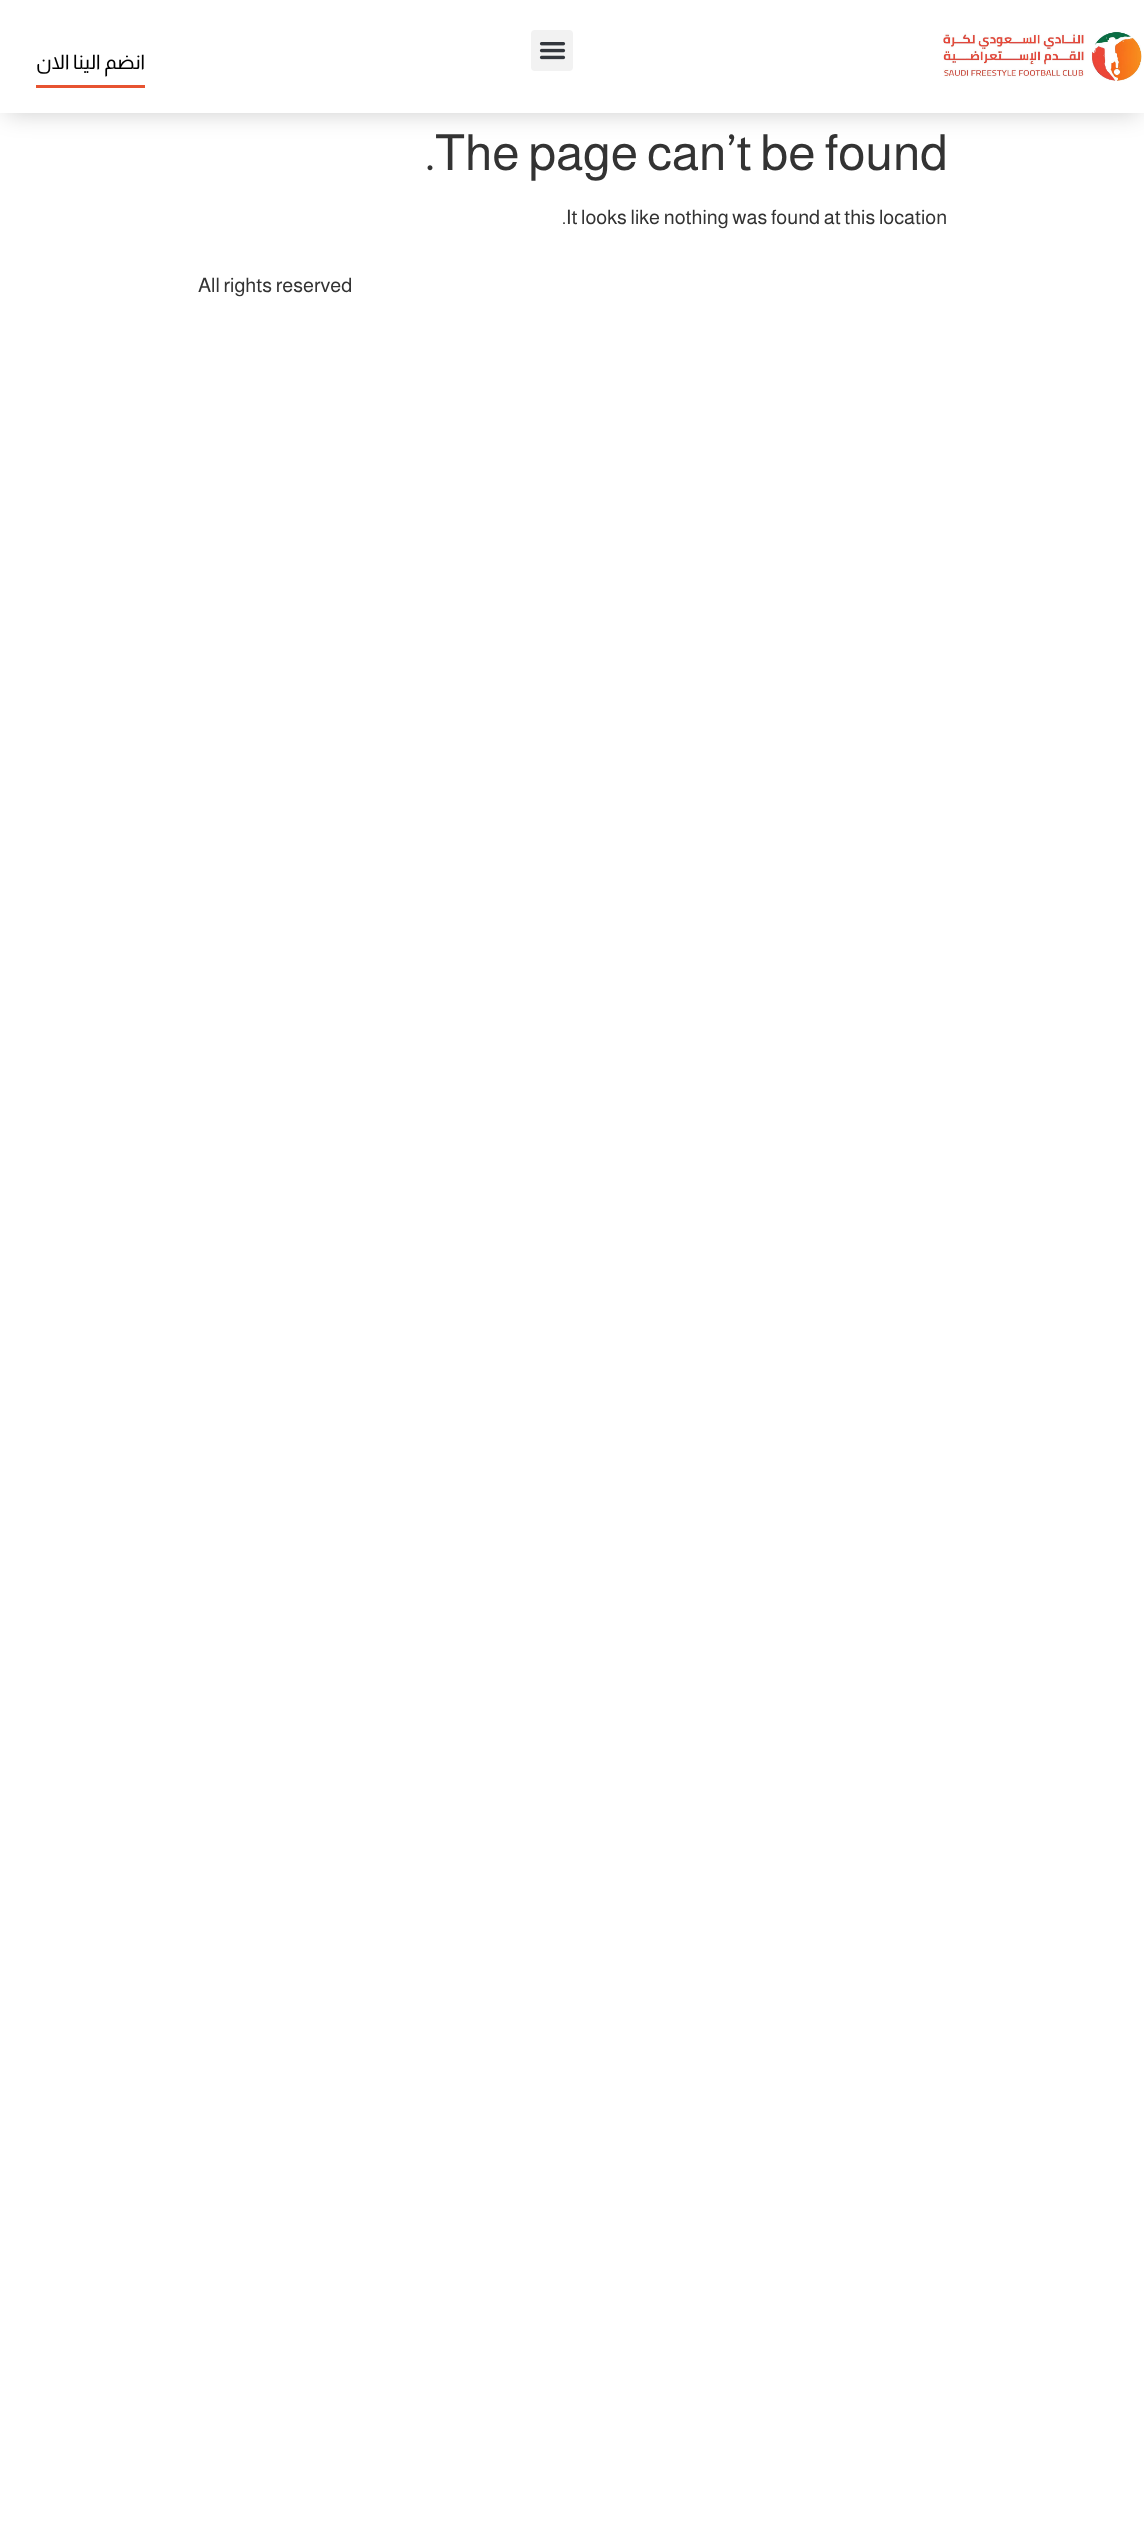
<svg xmlns="http://www.w3.org/2000/svg" width="1144" height="2527" viewBox="0 0 1144 2527">
  <defs>
    <filter id="blur1" x="-50%" y="-200%" width="200%" height="500%"><feGaussianBlur stdDeviation="12.5"/></filter>
  </defs>
  <rect width="100%" height="100%" fill="#ffffff"/>
  <rect x="6" y="13" width="1133" height="100" fill="#000000" fill-opacity="0.2" filter="url(#blur1)"/>
  <rect x="0" y="0" width="1144" height="113" fill="#ffffff"/>
  <text x="145" y="69" font-family="Almarai" font-size="20" direction="rtl" fill="#000000">انضم الينا الان</text>
  <rect x="36" y="85" width="109" height="3" fill="#e75331"/>
  <rect x="531" y="30" width="42" height="41" rx="4" fill="#f2f2f2"/>
  <image x="539" y="42" width="27" height="18" href="img1.png"/>
  <image x="943" y="31" width="199" height="50" href="img2.png"/>
  <text x="425" y="170" font-family="Almarai" font-size="50" fill="#333333">.The page can’t be found</text>
  <text x="562" y="224" font-family="Almarai" font-size="20" fill="#333333">.It looks like nothing was found at this location</text>
  <text x="198" y="292" font-family="Almarai" font-size="20" fill="#333333">All rights reserved</text>
</svg>
